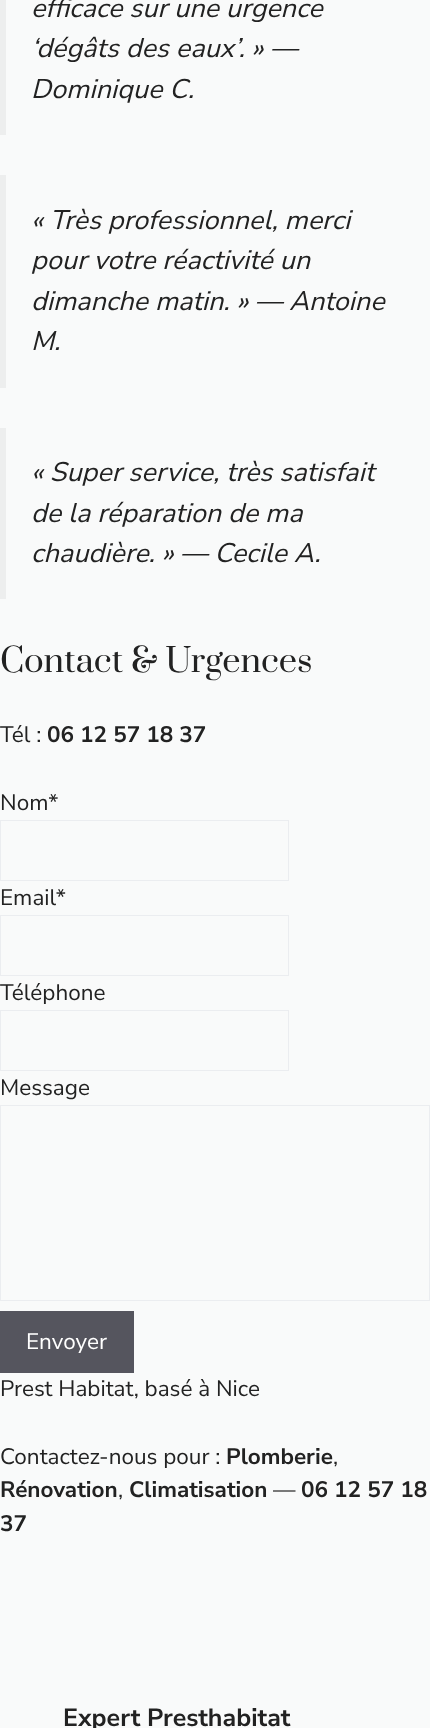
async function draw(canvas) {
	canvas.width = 430;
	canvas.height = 1728;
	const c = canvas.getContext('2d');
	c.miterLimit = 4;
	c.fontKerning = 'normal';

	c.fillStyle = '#f9fafa';
	c.fillRect(0, 0, 430, 1728);
	c.fillStyle = '#edeeee';
	c.fillRect(0, 0, 6, 135);
	c.font = 'italic 27px Nunito Sans';
	c.fillStyle = '#222';
	for (const [text, x, y] of [
		['efficace sur une urgence', 31, 17],
		['‘dégâts des eaux’. » —', 31, 57],
		['Dominique C.', 31, 98],
	]) {
		c.fillText(text, x, y);
	}
	c.fillStyle = '#edeeee';
	c.fillRect(0, 175, 6, 213);
	c.fillStyle = '#222';
	for (const [text, x, y] of [
		['« Très professionnel, merci', 31, 229],
		['pour votre réactivité un', 31, 269],
		['dimanche matin. » — Antoine', 31, 310],
		['M.', 31, 350],
	]) {
		c.fillText(text, x, y);
	}
	c.fillStyle = '#edeeee';
	c.fillRect(0, 428, 6, 171);
	c.fillStyle = '#222';
	for (const [text, x, y] of [
		['« Super service, très satisfait', 31, 481],
		['de la réparation de ma', 31, 522],
		['chaudière. » — Cecile A.', 31, 562],
	]) {
		c.fillText(text, x, y);
	}
	c.font = '32.5px Prata';
	c.fillText('Contact & Urgences', 0, 672);
	c.font = '22.5px Nunito Sans';
	c.fillText('Tél :', 0, 742);
	c.font = 'bold 22.5px Nunito Sans';
	c.fillText('06 12 57 18 37', 47, 742);
	c.font = '22.5px Nunito Sans';
	c.fillText('Nom*', 0, 810);
	c.strokeStyle = '#ebedf0';
	c.strokeRect(0.5, 820.5, 288, 60);
	c.fillText('Email*', 0, 905);
	c.strokeRect(0.5, 915.5, 288, 60);
	c.fillText('Téléphone', 0, 1000);
	c.strokeRect(0.5, 1010.5, 288, 60);
	c.fillText('Message', 0, 1095);
	c.strokeRect(0.5, 1105.5, 429, 195);
	c.fillStyle = '#55555e';
	c.fillRect(0, 1311, 134, 62);
	c.fillStyle = '#fff';
	c.fillText('Envoyer', 26, 1349);
	c.fillStyle = '#222';
	c.fillText('Prest Habitat, basé à Nice', 0, 1396);
	c.fillText('Contactez-nous pour :', 0, 1464);
	c.font = 'bold 22.5px Nunito Sans';
	c.fillText('Plomberie', 226, 1464);
	c.font = '22.5px Nunito Sans';
	c.fillText(',', 333, 1464);
	c.font = 'bold 22.5px Nunito Sans';
	c.fillText('Rénovation', 0, 1497);
	c.fillText('Climatisation', 129, 1497);
	c.font = '22.5px Nunito Sans';
	c.fillText('—', 273, 1497);
	c.font = 'bold 22.5px Nunito Sans';
	c.fillText('06 12 57 18', 301, 1497);
	c.font = '22.5px Nunito Sans';
	c.fillText(',', 118, 1497);
	c.font = 'bold 22.5px Nunito Sans';
	c.fillText('37', 0, 1531);
	c.font = 'bold 25px Nunito Sans';
	c.fillText('Expert Presthabitat', 63, 1726);
}

draw(document.querySelector('canvas'));
